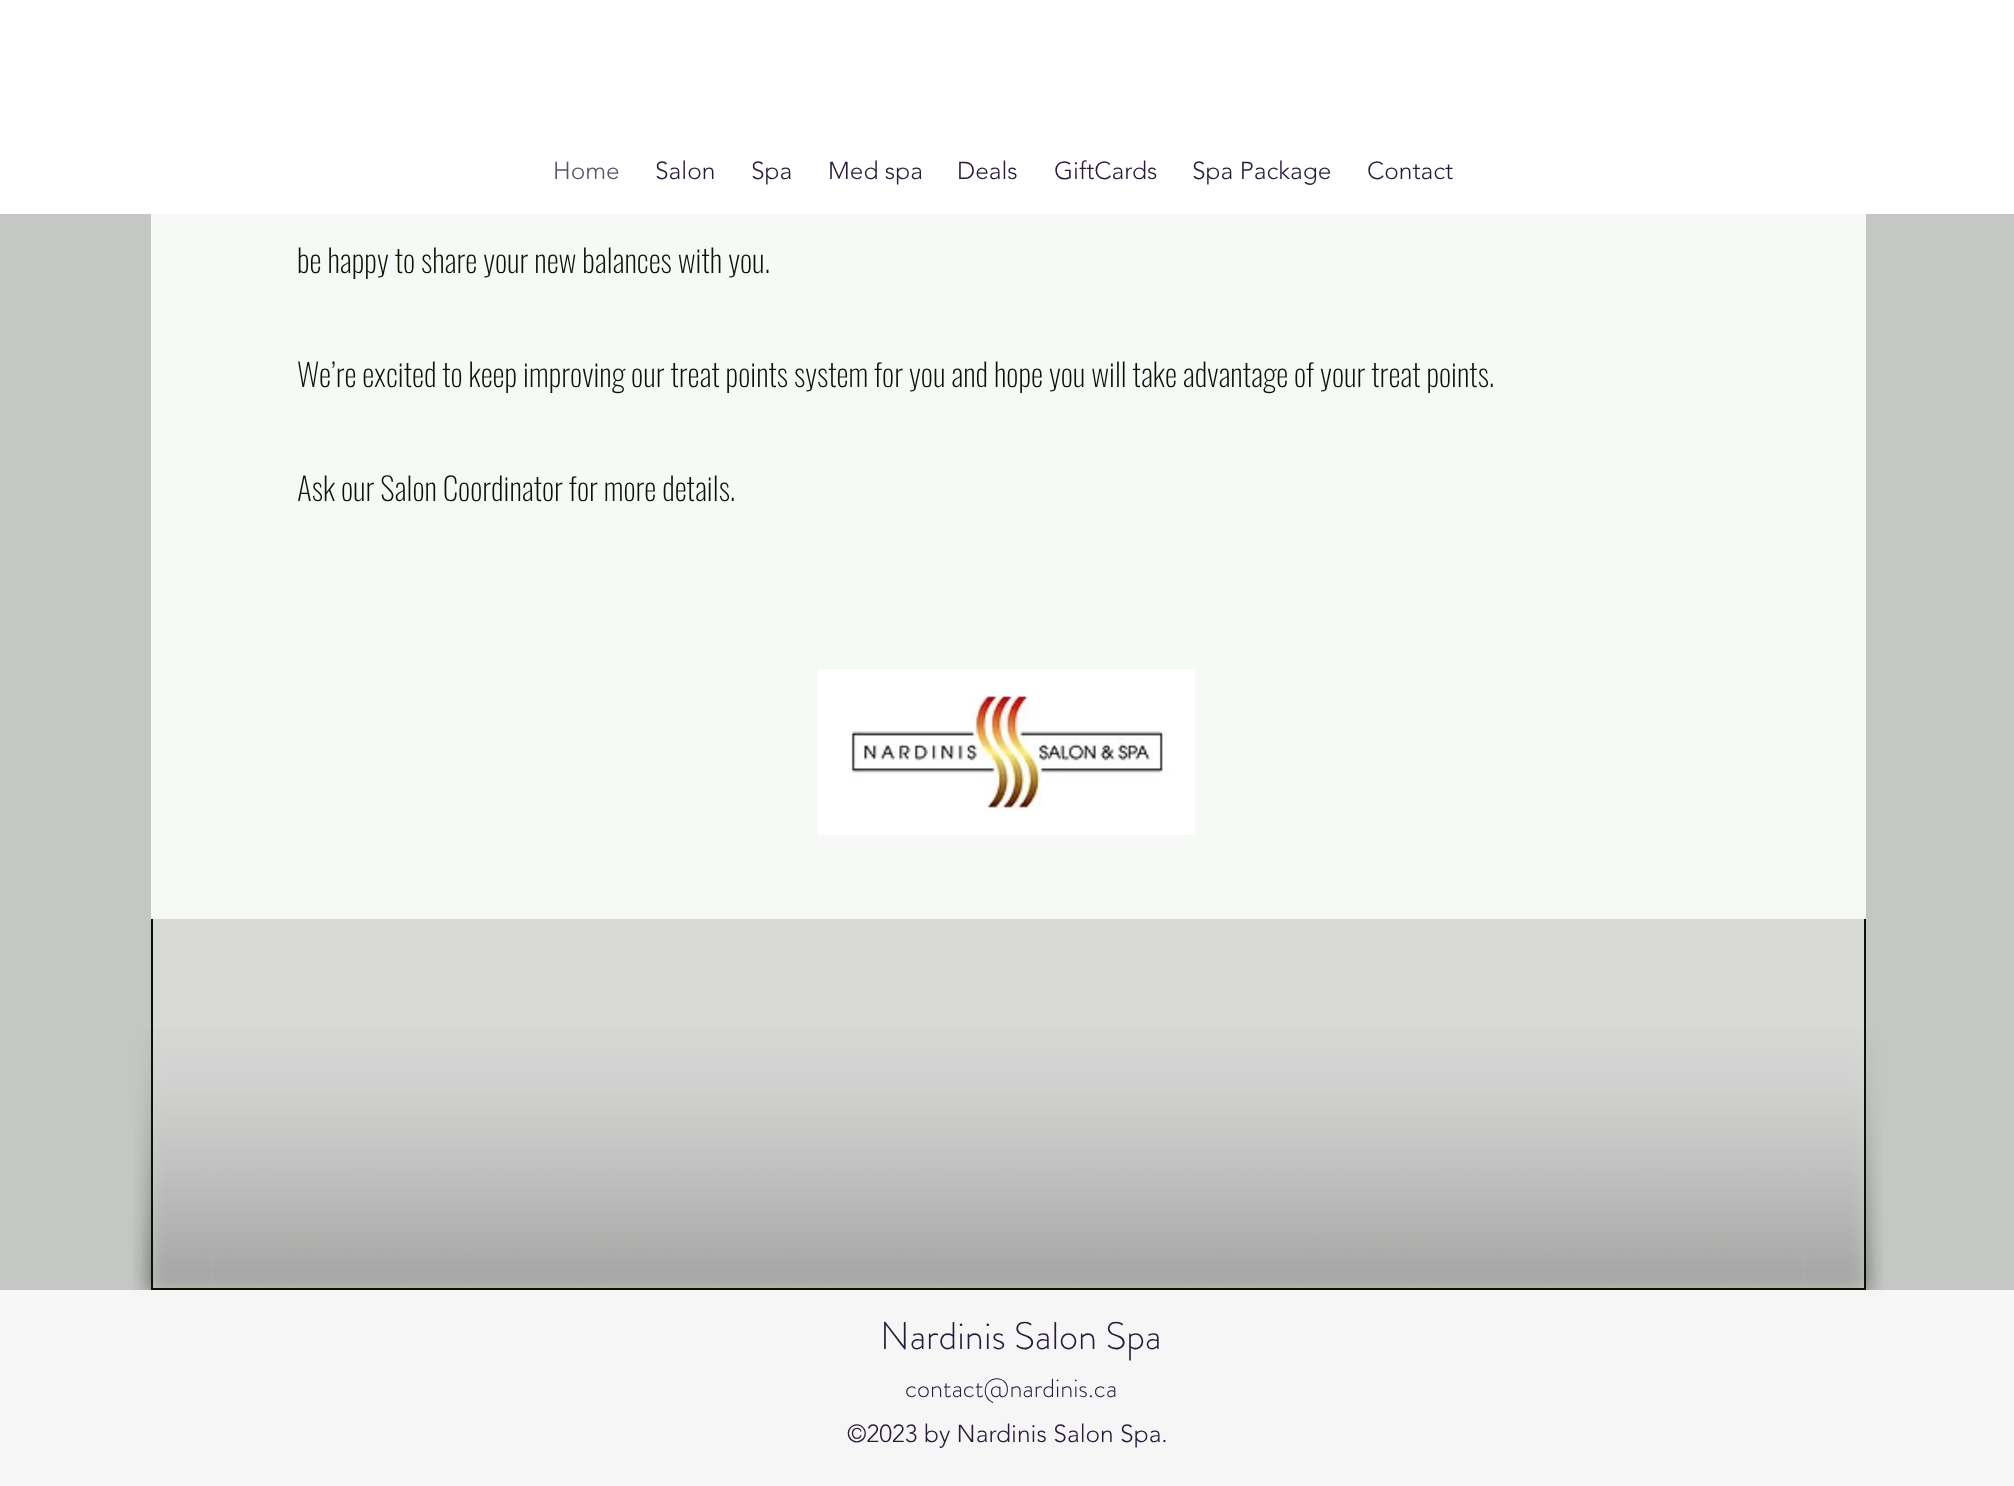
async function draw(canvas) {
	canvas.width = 2014;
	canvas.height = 1486;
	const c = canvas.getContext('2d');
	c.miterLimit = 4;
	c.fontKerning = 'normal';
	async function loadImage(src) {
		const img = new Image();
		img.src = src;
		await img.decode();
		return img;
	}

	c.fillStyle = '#c5c7c4';
	c.fillRect(0, 0, 2014, 1486);
	c.drawImage(await loadImage('img1.png'), 133, 1028, 79, 262);
	c.drawImage(await loadImage('img2.png'), 211, 1028, 1594, 260);
	c.drawImage(await loadImage('img3.png'), 1804, 1028, 79, 262);
	c.fillStyle = '#ffffff59';
	c.fillRect(153, 919, 1711, 369);
	c.strokeStyle = '#091405';
	c.lineWidth = 2;
	c.strokeRect(152, -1, 1713, 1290);
	c.fillStyle = '#fff';
	c.fillRect(0, 0, 2014, 214);
	c.font = '300 24.5px "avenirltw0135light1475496"';
	c.fillStyle = '#5c5168';
	c.fillText('Home', 553, 179);
	c.fillStyle = '#281a39';
	for (const [text, x, y] of [
		['Salon', 655, 179],
		['Spa', 751, 179],
		['Med spa', 828, 179],
		['Deals', 957, 179],
		['GiftCards', 1054, 179],
		['Spa Package', 1192, 179],
		['Contact', 1367, 179],
	]) {
		c.fillText(text, x, y);
	}
	c.fillStyle = '#f6f9f5';
	c.fillRect(151, 214, 1715, 705);
	c.font = '200 31.5px Oswald';
	c.fillStyle = '#091405';
	for (const [text, x, y] of [
		['be happy to share your new balances with you.', 297, 273],
		['We’re excited to keep improving our treat points system for you and hope you will take advantage of your treat points.', 297, 387],
		['Ask our Salon Coordinator for more details.', 297, 501],
	]) {
		c.fillText(text, x, y);
	}
	c.drawImage(await loadImage('img4.png'), 817, 669, 378, 166);
	c.fillStyle = '#f6f6f6';
	c.fillRect(0, 1290, 2014, 196);
	c.font = '300 38.5px "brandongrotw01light"';
	c.fillStyle = '#281a39';
	c.fillText('Nardinis Salon Spa', 880, 1349);
	c.font = '300 26.25px "brandongrotw01light"';
	c.fillText('contact@nardinis.ca', 905, 1397);
	c.font = '300 24.5px "avenirltw0135light1475496"';
	c.fillText('©2023 by Nardinis Salon Spa.', 847, 1442);
}

draw(document.querySelector('canvas'));
